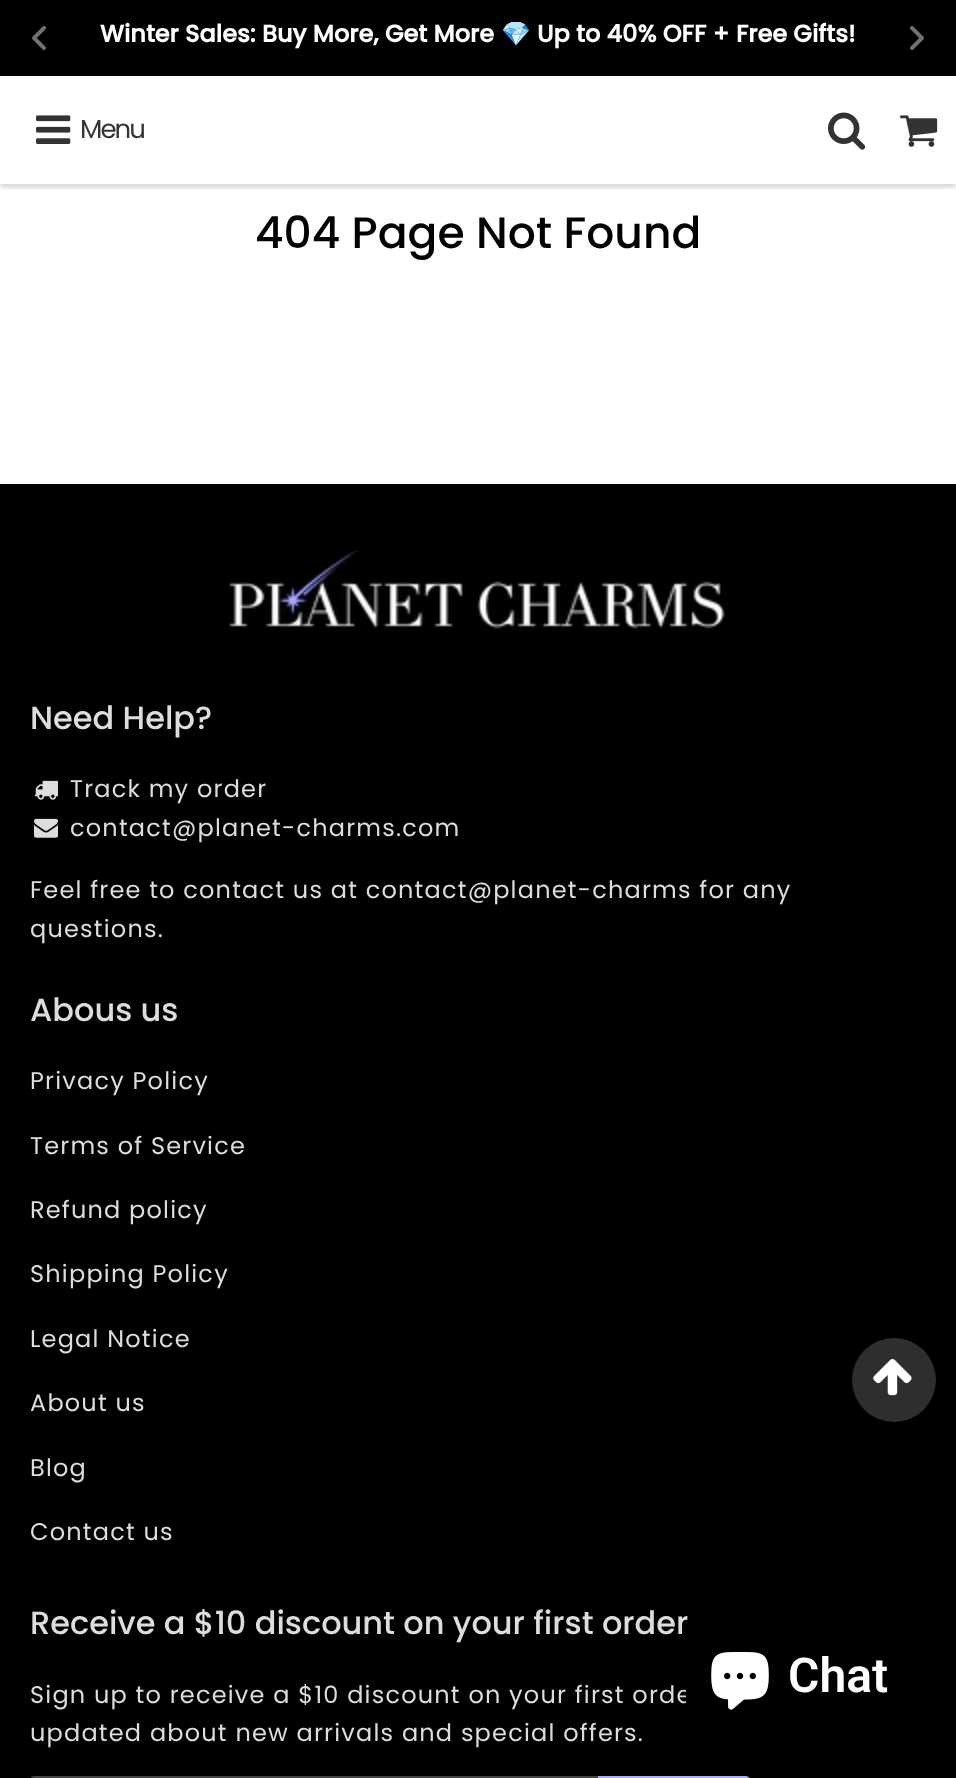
async function draw(canvas) {
	canvas.width = 956;
	canvas.height = 1778;
	const c = canvas.getContext('2d');
	c.miterLimit = 4;
	c.fontKerning = 'normal';
	async function loadImage(src) {
		const img = new Image();
		img.src = src;
		await img.decode();
		return img;
	}

	c.fillStyle = '#fff';
	c.fillRect(0, 0, 956, 1778);
	c.fillStyle = '#000';
	c.fillRect(0, 0, 956, 76);
	c.font = 'bold 24px Poppins';
	c.fillStyle = '#fff';
	c.fillText('Winter Sales: Buy More, Get More', 100, 42);
	c.font = 'bold 24px Noto Color Emoji';
	c.fillText('💎', 501, 42);
	c.font = 'bold 24px Poppins';
	c.fillText('Up to 40% OFF + Free Gifts!', 537, 42);
	c.drawImage(await loadImage('img1.png'), 32, 26, 14, 24);
	c.drawImage(await loadImage('img2.png'), 910, 26, 14, 24);
	c.save();
	c.beginPath();
	c.rect(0, 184, 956, 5);
	c.clip();
	c.fillStyle = '#0000000d';
	c.filter = 'blur(4px)';
	c.beginPath();
	c.rect(0, 80, 956, 108);
	c.fill();
	c.filter = 'none';
	c.restore();
	c.save();
	c.beginPath();
	c.rect(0, 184, 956, 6);
	c.clip();
	c.fillStyle = '#0000001a';
	c.filter = 'blur(2px)';
	c.beginPath();
	c.rect(0, 80, 956, 108);
	c.fill();
	c.filter = 'none';
	c.restore();
	c.drawImage(await loadImage('img3.png'), 36, 115, 35, 29);
	c.letterSpacing = '-2px';
	c.font = '26px Poppins';
	c.fillStyle = '#333';
	c.fillText('Menu', 80, 138);
	c.drawImage(await loadImage('img4.png'), 828, 112, 38, 38);
	c.drawImage(await loadImage('img5.png'), 900, 115, 38, 32);
	c.letterSpacing = '0px';
	c.font = '500 44px Poppins';
	c.fillStyle = '#000';
	c.fillText('404 Page Not Found', 255, 248);
	c.fillRect(0, 484, 956, 1294);
	c.drawImage(await loadImage('img6.png'), 229, 549, 496, 80);
	c.font = '500 32px Poppins';
	c.fillStyle = '#ddd';
	c.fillText('Need Help?', 30, 729);
	c.drawImage(await loadImage('img7.png'), 34, 780, 24, 20);
	c.letterSpacing = '1.2px';
	c.font = '24px Poppins';
	c.fillText('Track my order', 70, 797);
	c.drawImage(await loadImage('img8.png'), 34, 818, 24, 20);
	for (const [text, x, y] of [
		['contact@planet-charms.com', 70, 836],
		['Feel free to contact us at contact@planet-charms for any', 30, 898],
		['questions.', 30, 937],
	]) {
		c.fillText(text, x, y);
	}
	c.letterSpacing = '0px';
	c.font = '500 32px Poppins';
	c.fillText('Abous us', 30, 1021);
	c.letterSpacing = '1.2px';
	c.font = '24px Poppins';
	for (const [text, x, y] of [
		['Privacy Policy', 30, 1089],
		['Terms of Service', 30, 1154],
		['Refund policy', 30, 1218],
		['Shipping Policy', 30, 1282],
		['Legal Notice', 30, 1347],
		['About us', 30, 1411],
		['Blog', 30, 1476],
		['Contact us', 30, 1540],
	]) {
		c.fillText(text, x, y);
	}
	c.letterSpacing = '0px';
	c.font = '500 32px Poppins';
	c.fillText('Receive a $10 discount on your first order', 30, 1634);
	c.letterSpacing = '1.2px';
	c.font = '24px Poppins';
	c.fillText('Sign up to receive a $10 discount on your first orde', 30, 1703);
	c.fillText('updated about new arrivals and special offers.', 30, 1741);
	c.fillStyle = '#444';
	c.beginPath();
	c.moveTo(34, 1776);
	c.lineTo(598, 1776);
	c.lineTo(598, 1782);
	c.lineTo(34, 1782);
	c.bezierCurveTo(32, 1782, 30, 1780, 30, 1778);
	c.lineTo(30, 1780);
	c.bezierCurveTo(30, 1778, 32, 1776, 34, 1776);
	c.closePath();
	c.fill();
	c.fillStyle = '#aaacff';
	c.beginPath();
	c.moveTo(598, 1776);
	c.lineTo(746, 1776);
	c.bezierCurveTo(748, 1776, 750, 1778, 750, 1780);
	c.lineTo(750, 1778);
	c.bezierCurveTo(750, 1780, 748, 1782, 746, 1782);
	c.lineTo(598, 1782);
	c.closePath();
	c.fill();
	c.fillStyle = '#2e2e2e';
	c.beginPath();
	c.arc(894, 1380, 42, 0, 2 * Math.PI);
	c.fill();
	c.drawImage(await loadImage('img9.png'), 873, 1359, 39, 37);
	c.fillStyle = '#00000026';
	c.filter = 'blur(5px)';
	c.beginPath();
	c.roundRect(686, 1616, 226, 120, 32);
	c.fill();
	c.filter = 'none';
	c.fillStyle = '#000';
	c.beginPath();
	c.roundRect(686, 1616, 226, 120, 32);
	c.fill();
	c.drawImage(await loadImage('img10.png'), 711, 1652, 58, 58);
	c.letterSpacing = '0px';
	c.font = '600 48px Roboto';
	c.fillStyle = '#fff';
	c.fillText('Chat', 788, 1692);
}

draw(document.querySelector('canvas'));
